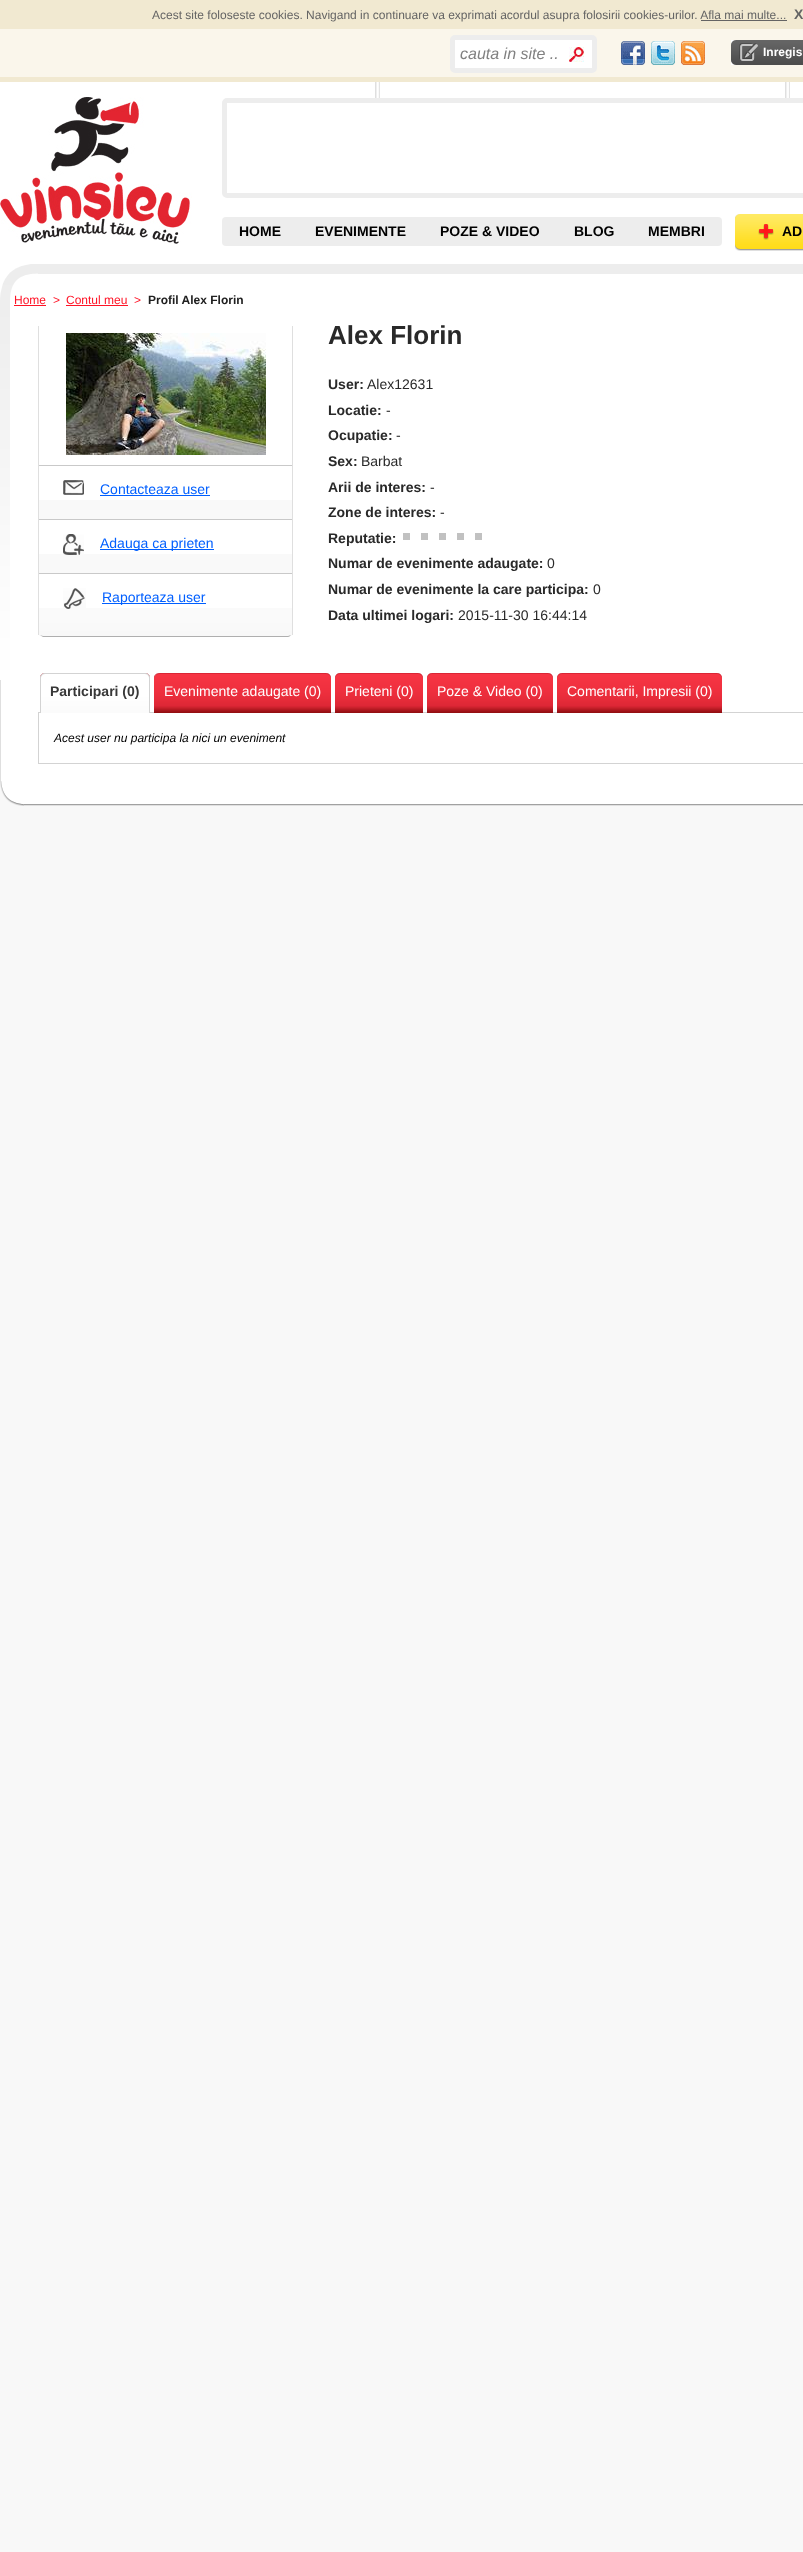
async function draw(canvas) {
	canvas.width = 803;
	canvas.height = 2552;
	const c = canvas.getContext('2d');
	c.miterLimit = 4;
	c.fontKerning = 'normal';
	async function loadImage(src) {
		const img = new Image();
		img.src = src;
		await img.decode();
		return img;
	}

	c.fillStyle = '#f8f8f8';
	c.fillRect(0, 0, 803, 2552);
	c.drawImage(await loadImage('img1.png'), 0, 82, 803, 182);
	c.fillStyle = '#f1e9d1';
	c.fillRect(0, 0, 803, 29);
	c.font = '12px Liberation Sans';
	c.fillStyle = '#646464';
	c.fillText('Acest site foloseste cookies. Navigand in continuare va exprimati acordul asupra folosirii cookies-urilor. Afla mai multe...', 152, 19);
	c.font = 'bold 14px Liberation Sans';
	c.fillText('X', 794, 19);
	for (const [x, y, w, h, color] of [
		[701, 20, 86, 1, '#646464'],
		[0, 29, 803, 48, '#faf6eb'],
		[0, 77, 803, 5, '#f1e9d1'],
	]) {
		c.fillStyle = color;
		c.fillRect(x, y, w, h);
	}
	c.fillStyle = '#fff';
	c.beginPath();
	c.roundRect(452.5, 37.5, 142, 33, 2.5);
	c.fill();
	c.strokeStyle = '#ededed';
	c.lineWidth = 5;
	c.stroke();
	c.font = 'italic 16px Liberation Sans';
	c.fillStyle = '#818181';
	c.fillText('cauta in site ..', 460, 59);
	c.drawImage(await loadImage('img2.png'), 569, 47, 15, 15);
	c.drawImage(await loadImage('img3.png'), 621, 41, 24, 24);
	c.drawImage(await loadImage('img4.png'), 651, 41, 24, 24);
	c.drawImage(await loadImage('img5.png'), 681, 41, 24, 24);
	c.drawImage(await loadImage('img6.png'), 731, 40, 72, 25);
	c.font = 'bold 12px Liberation Sans';
	c.fillStyle = '#fff';
	c.fillText('Inregis', 763, 56);
	c.drawImage(await loadImage('img7.png'), 0, 97, 192, 147);
	c.drawImage(await loadImage('img8.png'), 375, 82, 415, 16);
	c.beginPath();
	c.roundRect(224.5, 100.5, 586, 95, 2.5);
	c.stroke();
	c.fillStyle = '#ededed';
	c.beginPath();
	c.roundRect(222, 217, 500, 29, 4);
	c.fill();
	c.font = 'bold 14px Liberation Sans';
	c.fillStyle = '#000';
	for (const [text, x, y] of [
		['HOME', 239, 236],
		['EVENIMENTE', 315, 236],
		['POZE & VIDEO', 440, 236],
		['BLOG', 574, 236],
		['MEMBRI', 648, 236],
	]) {
		c.fillText(text, x, y);
	}
	c.drawImage(await loadImage('img9.png'), 735, 214, 68, 37);
	c.fillText('AD', 782, 236);
	c.fillStyle = '#fff';
	c.fillRect(1, 274, 802, 530);
	c.fillStyle = '#ededed';
	c.beginPath();
	c.moveTo(0, 264);
	c.lineTo(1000, 264);
	c.lineTo(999, 274);
	c.lineTo(1, 274);
	c.closePath();
	c.fill();
	c.fillStyle = '#dfdfdf';
	c.beginPath();
	c.moveTo(0, 805);
	c.lineTo(0, 264);
	c.lineTo(1, 274);
	c.lineTo(1, 805);
	c.closePath();
	c.fill();
	c.drawImage(await loadImage('img10.png'), 0, 264, 38, 416);
	c.font = '12px Liberation Sans';
	c.fillStyle = '#ff1326';
	c.fillText('Home', 14, 304);
	c.fillRect(14, 305, 32, 1);
	c.fillText('>', 53, 304);
	c.fillText('Contul meu', 66, 304);
	c.fillRect(66, 305, 62, 1);
	c.fillText('>', 134, 304);
	c.font = 'bold 12px Liberation Sans';
	c.fillStyle = '#202020';
	c.fillText('Profil Alex Florin', 148, 304);
	c.drawImage(await loadImage('img11.png'), 39, 616, 253, 21);
	c.fillStyle = '#afafaf';
	c.beginPath();
	c.moveTo(40, 635);
	c.lineTo(43, 637);
	c.lineTo(288, 637);
	c.bezierCurveTo(289, 637, 290, 636, 291, 635);
	c.lineTo(288, 636);
	c.lineTo(43, 636);
	c.closePath();
	c.fill();
	c.fillStyle = '#dfdfdf';
	c.fillRect(292, 326, 1, 309);
	c.fillRect(38, 326, 1, 309);
	c.drawImage(await loadImage('img12.png'), 66, 333, 200, 122);
	c.fillStyle = '#f9f9f9';
	c.fillRect(39, 500, 253, 19);
	c.fillStyle = '#c9c9c9';
	c.fillRect(39, 465, 253, 1);
	c.drawImage(await loadImage('img13.png'), 63, 480, 21, 15);
	c.font = '14px Liberation Sans';
	c.fillStyle = '#005fff';
	c.fillText('Contacteaza user', 100, 494);
	for (const [x, y, w, h, color] of [
		[100, 495, 110, 1, '#005fff'],
		[39, 554, 253, 19, '#f9f9f9'],
		[39, 519, 253, 1, '#c9c9c9'],
	]) {
		c.fillStyle = color;
		c.fillRect(x, y, w, h);
	}
	c.drawImage(await loadImage('img14.png'), 63, 534, 21, 21);
	c.fillStyle = '#005fff';
	c.fillRect(100, 549, 114, 1);
	c.fillText('Adauga ca prieten', 100, 548);
	c.fillStyle = '#fafafa';
	c.fillRect(39, 608, 253, 8);
	c.fillStyle = '#c9c9c9';
	c.fillRect(39, 573, 253, 1);
	c.drawImage(await loadImage('img15.png'), 63, 588, 23, 21);
	c.fillStyle = '#005fff';
	c.fillRect(102, 603, 104, 1);
	c.fillText('Raporteaza user', 102, 602);
	c.font = 'bold 26px Liberation Sans';
	c.fillStyle = '#292929';
	c.fillText('Alex Florin', 328, 344);
	c.font = 'bold 14px Liberation Sans';
	c.fillText('User:', 328, 389);
	c.font = '14px Liberation Sans';
	c.fillText('Alex12631', 367, 389);
	c.font = 'bold 14px Liberation Sans';
	c.fillText('Locatie:', 328, 415);
	c.font = '14px Liberation Sans';
	c.fillText('-', 386, 415);
	c.font = 'bold 14px Liberation Sans';
	c.fillText('Ocupatie:', 328, 440);
	c.font = '14px Liberation Sans';
	c.fillText('-', 396, 440);
	c.font = 'bold 14px Liberation Sans';
	c.fillText('Sex:', 328, 466);
	c.font = '14px Liberation Sans';
	c.fillText('Barbat', 361, 466);
	c.font = 'bold 14px Liberation Sans';
	c.fillText('Arii de interes:', 328, 492);
	c.font = '14px Liberation Sans';
	c.fillText('-', 430, 492);
	c.font = 'bold 14px Liberation Sans';
	c.fillText('Zone de interes:', 328, 517);
	c.font = '14px Liberation Sans';
	c.fillText('-', 440, 517);
	c.font = 'bold 14px Liberation Sans';
	c.fillText('Reputatie:', 328, 543);
	for (const [x, y, w, h, color] of [
		[403, 533, 7, 7, '#c1c1c1'],
		[421, 533, 7, 7, '#c1c1c1'],
		[439, 533, 7, 7, '#c1c1c1'],
		[457, 533, 7, 7, '#c1c1c1'],
		[475, 533, 7, 7, '#c1c1c1'],
	]) {
		c.fillStyle = color;
		c.fillRect(x, y, w, h);
	}
	c.fillStyle = '#292929';
	c.fillText('Numar de evenimente adaugate:', 328, 568);
	c.font = '14px Liberation Sans';
	c.fillText('0', 547, 568);
	c.font = 'bold 14px Liberation Sans';
	c.fillText('Numar de evenimente la care participa:', 328, 594);
	c.font = '14px Liberation Sans';
	c.fillText('0', 593, 594);
	c.font = 'bold 14px Liberation Sans';
	c.fillText('Data ultimei logari:', 328, 620);
	c.font = '14px Liberation Sans';
	c.fillText('2015-11-30 16:44:14', 458, 620);
	c.strokeStyle = '#d3d3d3';
	c.lineWidth = 1;
	c.strokeRect(38.5, 712.5, 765, 51);
	c.drawImage(await loadImage('img16.png'), 45, 673, 100, 40);
	c.drawImage(await loadImage('img17.png'), 40, 673, 5, 40);
	c.drawImage(await loadImage('img18.png'), 145, 673, 5, 40);
	c.font = 'bold 14px Liberation Sans';
	c.fillStyle = '#383838';
	c.fillText('Participari (0)', 50, 696);
	c.drawImage(await loadImage('img19.png'), 154, 673, 177, 40);
	c.drawImage(await loadImage('img20.png'), 154, 673, 6, 5);
	c.drawImage(await loadImage('img21.png'), 326, 673, 5, 5);
	c.font = '14px Liberation Sans';
	c.fillStyle = '#fff';
	c.fillText('Evenimente adaugate (0)', 164, 696);
	c.drawImage(await loadImage('img22.png'), 335, 673, 88, 40);
	c.drawImage(await loadImage('img23.png'), 335, 673, 5, 5);
	c.drawImage(await loadImage('img21.png'), 418, 673, 5, 5);
	c.fillText('Prieteni (0)', 345, 696);
	c.drawImage(await loadImage('img24.png'), 427, 673, 126, 40);
	c.drawImage(await loadImage('img23.png'), 427, 673, 5, 5);
	c.drawImage(await loadImage('img21.png'), 548, 673, 5, 5);
	c.fillText('Poze & Video (0)', 437, 696);
	c.drawImage(await loadImage('img25.png'), 557, 673, 165, 40);
	c.drawImage(await loadImage('img23.png'), 557, 673, 5, 5);
	c.drawImage(await loadImage('img21.png'), 717, 673, 5, 5);
	c.fillText('Comentarii, Impresii (0)', 567, 696);
	c.font = 'italic 12px Liberation Sans';
	c.fillStyle = '#000';
	c.fillText('Acest user nu participa la nici un eveniment', 54, 742);
	c.drawImage(await loadImage('img26.png'), 0, 781, 24, 25);
	c.drawImage(await loadImage('img27.png'), 24, 804, 779, 2);
}

draw(document.querySelector('canvas'));
